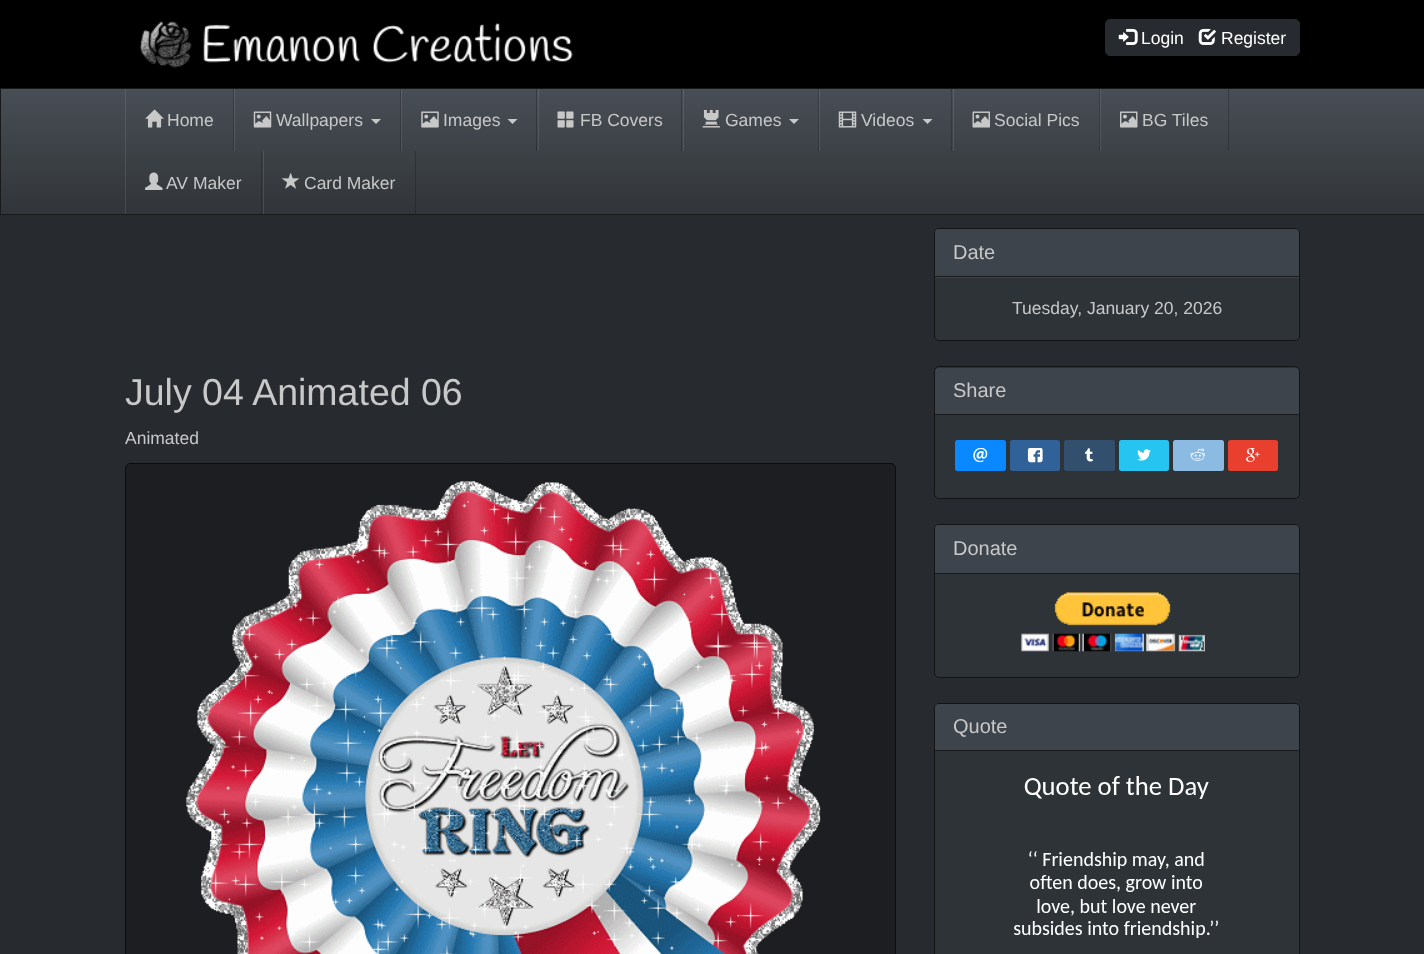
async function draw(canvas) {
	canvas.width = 1424;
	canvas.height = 954;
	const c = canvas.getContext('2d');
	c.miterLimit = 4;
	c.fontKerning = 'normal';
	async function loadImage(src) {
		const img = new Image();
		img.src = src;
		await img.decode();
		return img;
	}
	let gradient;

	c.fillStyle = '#272b30';
	c.fillRect(0, 0, 1424, 954);
	c.fillStyle = '#000';
	c.fillRect(0, 0, 1424, 88);
	c.drawImage(await loadImage('img1.png'), 140, 21, 433, 47);
	c.fillStyle = '#272b30';
	c.beginPath();
	c.roundRect(1105.5, 19.5, 194, 36, 4.5);
	c.fill();
	c.strokeStyle = '#272b30';
	c.stroke();
	c.drawImage(await loadImage('img2.png'), 1118, 28, 20, 17);
	c.font = '17.5px Liberation Sans';
	c.fillStyle = '#fff';
	c.fillText('Login', 1141, 44);
	c.drawImage(await loadImage('img3.png'), 1198, 28, 18, 17);
	c.fillText('Register', 1221, 44);
	gradient = c.createLinearGradient(713, 89, 713, 214);
	gradient.addColorStop(0, '#484e55');
	gradient.addColorStop(0.6, '#3a3f44');
	gradient.addColorStop(1, '#313539');
	c.fillStyle = gradient;
	c.fillRect(1, 89, 1423, 125);
	gradient = c.createLinearGradient(713, 89, 713, 214);
	gradient.addColorStop(0, '#5a6066');
	gradient.addColorStop(0.6, '#4e5257');
	gradient.addColorStop(1, '#46494d');
	c.fillStyle = gradient;
	c.fillRect(263, 151, 1, 63);
	gradient = c.createLinearGradient(713, 89, 713, 214);
	gradient.addColorStop(0, '#3a3e44');
	gradient.addColorStop(0.6, '#2e3236');
	gradient.addColorStop(1, '#272a2e');
	c.fillStyle = gradient;
	c.fillRect(415, 151, 1, 63);
	gradient = c.createLinearGradient(713, 89, 713, 214);
	gradient.addColorStop(0, '#5a6066');
	gradient.addColorStop(0.6, '#4e5257');
	gradient.addColorStop(1, '#46494d');
	c.fillStyle = gradient;
	c.fillRect(125, 151, 1, 63);
	gradient = c.createLinearGradient(713, 89, 713, 214);
	gradient.addColorStop(0, '#3a3e44');
	gradient.addColorStop(0.6, '#2e3236');
	gradient.addColorStop(1, '#272a2e');
	c.fillStyle = gradient;
	c.fillRect(261, 151, 1, 63);
	gradient = c.createLinearGradient(713, 89, 713, 214);
	gradient.addColorStop(0, '#5a6066');
	gradient.addColorStop(0.6, '#4e5257');
	gradient.addColorStop(1, '#46494d');
	c.fillStyle = gradient;
	c.fillRect(1100, 89, 1, 62);
	gradient = c.createLinearGradient(713, 89, 713, 214);
	gradient.addColorStop(0, '#3a3e44');
	gradient.addColorStop(0.6, '#2e3236');
	gradient.addColorStop(1, '#272a2e');
	c.fillStyle = gradient;
	c.fillRect(1228, 89, 1, 62);
	gradient = c.createLinearGradient(713, 89, 713, 214);
	gradient.addColorStop(0, '#5a6066');
	gradient.addColorStop(0.6, '#4e5257');
	gradient.addColorStop(1, '#46494d');
	c.fillStyle = gradient;
	c.fillRect(953, 89, 1, 62);
	gradient = c.createLinearGradient(713, 89, 713, 214);
	gradient.addColorStop(0, '#3a3e44');
	gradient.addColorStop(0.6, '#2e3236');
	gradient.addColorStop(1, '#272a2e');
	c.fillStyle = gradient;
	c.fillRect(1099, 89, 1, 62);
	gradient = c.createLinearGradient(713, 89, 713, 214);
	gradient.addColorStop(0, '#5a6066');
	gradient.addColorStop(0.6, '#4e5257');
	gradient.addColorStop(1, '#46494d');
	c.fillStyle = gradient;
	c.fillRect(819, 89, 1, 62);
	gradient = c.createLinearGradient(713, 89, 713, 214);
	gradient.addColorStop(0, '#3a3e44');
	gradient.addColorStop(0.6, '#2e3236');
	gradient.addColorStop(1, '#272a2e');
	c.fillStyle = gradient;
	c.fillRect(951, 89, 1, 62);
	gradient = c.createLinearGradient(713, 89, 713, 214);
	gradient.addColorStop(0, '#5a6066');
	gradient.addColorStop(0.6, '#4e5257');
	gradient.addColorStop(1, '#46494d');
	c.fillStyle = gradient;
	c.fillRect(683, 89, 1, 62);
	gradient = c.createLinearGradient(713, 89, 713, 214);
	gradient.addColorStop(0, '#3a3e44');
	gradient.addColorStop(0.6, '#2e3236');
	gradient.addColorStop(1, '#272a2e');
	c.fillStyle = gradient;
	c.fillRect(818, 89, 1, 62);
	gradient = c.createLinearGradient(713, 89, 713, 214);
	gradient.addColorStop(0, '#5a6066');
	gradient.addColorStop(0.6, '#4e5257');
	gradient.addColorStop(1, '#46494d');
	c.fillStyle = gradient;
	c.fillRect(538, 89, 1, 62);
	gradient = c.createLinearGradient(713, 89, 713, 214);
	gradient.addColorStop(0, '#3a3e44');
	gradient.addColorStop(0.6, '#2e3236');
	gradient.addColorStop(1, '#272a2e');
	c.fillStyle = gradient;
	c.fillRect(681, 89, 1, 62);
	gradient = c.createLinearGradient(713, 89, 713, 214);
	gradient.addColorStop(0, '#5a6066');
	gradient.addColorStop(0.6, '#4e5257');
	gradient.addColorStop(1, '#46494d');
	c.fillStyle = gradient;
	c.fillRect(401, 89, 1, 62);
	gradient = c.createLinearGradient(713, 89, 713, 214);
	gradient.addColorStop(0, '#3a3e44');
	gradient.addColorStop(0.6, '#2e3236');
	gradient.addColorStop(1, '#272a2e');
	c.fillStyle = gradient;
	c.fillRect(536, 89, 1, 62);
	gradient = c.createLinearGradient(713, 89, 713, 214);
	gradient.addColorStop(0, '#5a6066');
	gradient.addColorStop(0.6, '#4e5257');
	gradient.addColorStop(1, '#46494d');
	c.fillStyle = gradient;
	c.fillRect(234, 89, 1, 62);
	gradient = c.createLinearGradient(713, 89, 713, 214);
	gradient.addColorStop(0, '#3a3e44');
	gradient.addColorStop(0.6, '#2e3236');
	gradient.addColorStop(1, '#272a2e');
	c.fillStyle = gradient;
	c.fillRect(400, 89, 1, 62);
	gradient = c.createLinearGradient(713, 89, 713, 214);
	gradient.addColorStop(0, '#5a6066');
	gradient.addColorStop(0.6, '#4e5257');
	gradient.addColorStop(1, '#46494d');
	c.fillStyle = gradient;
	c.fillRect(125, 89, 1, 62);
	gradient = c.createLinearGradient(713, 89, 713, 214);
	gradient.addColorStop(0, '#3a3e44');
	gradient.addColorStop(0.6, '#2e3236');
	gradient.addColorStop(1, '#272a2e');
	c.fillStyle = gradient;
	c.fillRect(233, 89, 1, 62);
	c.strokeStyle = '#17191b';
	c.strokeRect(0.5, 88.5, 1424, 126);
	c.drawImage(await loadImage('img4.png'), 145, 109, 19, 19);
	c.fillStyle = '#c8c8c8';
	c.fillText('Home', 167, 126);
	c.drawImage(await loadImage('img5.png'), 253, 111, 19, 17);
	c.fillText('Wallpapers', 276, 126);
	c.beginPath();
	c.moveTo(371, 119);
	c.lineTo(381, 119);
	c.lineTo(376, 124);
	c.closePath();
	c.fill();
	c.drawImage(await loadImage('img6.png'), 421, 111, 18, 17);
	c.fillText('Images', 443, 126);
	c.beginPath();
	c.moveTo(507.5, 119);
	c.lineTo(517.5, 119);
	c.lineTo(512.5, 124);
	c.closePath();
	c.fill();
	c.drawImage(await loadImage('img7.png'), 557, 111, 17, 17);
	c.fillText('FB Covers', 580, 126);
	c.drawImage(await loadImage('img8.png'), 702, 110, 18, 18);
	c.fillText('Games', 725, 126);
	c.beginPath();
	c.moveTo(789, 119);
	c.lineTo(799, 119);
	c.lineTo(794, 124);
	c.closePath();
	c.fill();
	c.drawImage(await loadImage('img9.png'), 838, 111, 19, 17);
	c.fillText('Videos', 861, 126);
	c.beginPath();
	c.moveTo(922.5, 119);
	c.lineTo(932.5, 119);
	c.lineTo(927.5, 124);
	c.closePath();
	c.fill();
	c.drawImage(await loadImage('img10.png'), 972, 111, 18, 17);
	c.fillText('Social Pics', 994, 126);
	c.drawImage(await loadImage('img11.png'), 1120, 111, 18, 17);
	c.fillText('BG Tiles', 1142, 126);
	c.drawImage(await loadImage('img12.png'), 145, 172, 18, 18);
	c.fillText('AV Maker', 166, 189);
	c.drawImage(await loadImage('img13.png'), 282, 173, 18, 16);
	c.fillText('Card Maker', 304, 189);
	c.font = '37.5px Liberation Sans';
	c.fillText('July 04 Animated 06', 125, 405);
	c.font = '17.5px Liberation Sans';
	c.fillText('Animated', 125, 444);
	c.fillStyle = '#1c1e22';
	c.beginPath();
	c.roundRect(125.5, 463.5, 770, 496, 4.5);
	c.fill();
	c.strokeStyle = '#0c0d0e';
	c.stroke();
	c.drawImage(await loadImage('img14.png'), 186, 481, 635, 473);
	c.fillStyle = '#2e3338';
	c.beginPath();
	c.roundRect(934, 228, 366, 113, 5);
	c.fill();
	c.beginPath();
	c.roundRect(934.5, 228.5, 365, 112, 4.5);
	c.strokeStyle = '#00000099';
	c.stroke();
	c.fillStyle = '#3e444c';
	c.beginPath();
	c.roundRect(935, 229, 364, 49, [4, 4, 0, 0]);
	c.fill();
	c.fillStyle = '#191b1e';
	c.fillRect(935, 276, 364, 1);
	c.font = '20px Liberation Sans';
	c.fillStyle = '#c8c8c8';
	c.fillText('Date', 953, 259);
	c.font = '17.5px Liberation Sans';
	c.fillText('Tuesday, January 20, 2026', 1012, 314);
	c.fillStyle = '#2e3338';
	c.beginPath();
	c.roundRect(934, 366, 366, 133, 5);
	c.fill();
	c.beginPath();
	c.roundRect(934.5, 366.5, 365, 132, 4.5);
	c.stroke();
	c.fillStyle = '#3e444c';
	c.beginPath();
	c.roundRect(935, 368, 364, 47, [4, 4, 0, 0]);
	c.fill();
	c.fillStyle = '#191b1e';
	c.fillRect(935, 414, 364, 1);
	c.font = '20px Liberation Sans';
	c.fillStyle = '#c8c8c8';
	c.fillText('Share', 953, 397);
	c.fillStyle = '#0a88ff';
	c.beginPath();
	c.roundRect(955, 440, 51, 31, 2.5);
	c.fill();
	c.drawImage(await loadImage('img15.png'), 973, 448, 15, 15);
	c.fillStyle = '#306199';
	c.beginPath();
	c.roundRect(1010, 440, 50, 31, 2.5);
	c.fill();
	c.drawImage(await loadImage('img16.png'), 1027, 448, 16, 15);
	c.fillStyle = '#32506d';
	c.beginPath();
	c.roundRect(1064, 440, 51, 31, 2.5);
	c.fill();
	c.drawImage(await loadImage('img17.png'), 1085, 448, 8, 14);
	c.fillStyle = '#26c4f1';
	c.beginPath();
	c.roundRect(1119, 440, 50, 31, 2.5);
	c.fill();
	c.drawImage(await loadImage('img18.png'), 1137, 449, 14, 12);
	c.fillStyle = '#8bbbe3';
	c.beginPath();
	c.roundRect(1173, 440, 51, 31, 2.5);
	c.fill();
	c.drawImage(await loadImage('img19.png'), 1190, 448, 15, 13);
	c.fillStyle = '#e93f2e';
	c.beginPath();
	c.roundRect(1228, 440, 50, 31, 2.5);
	c.fill();
	c.drawImage(await loadImage('img20.png'), 1246, 448, 14, 14);
	c.fillStyle = '#2e3338';
	c.beginPath();
	c.roundRect(934, 524, 366, 154, 5);
	c.fill();
	c.beginPath();
	c.roundRect(934.5, 524.5, 365, 153, 4.5);
	c.stroke();
	c.fillStyle = '#3e444c';
	c.beginPath();
	c.roundRect(935, 525, 364, 49, [4, 4, 0, 0]);
	c.fill();
	c.fillStyle = '#191b1e';
	c.fillRect(935, 573, 364, 1);
	c.fillStyle = '#c8c8c8';
	c.fillText('Donate', 953, 555);
	c.drawImage(await loadImage('img21.png'), 1021, 592, 184, 60);
	c.fillStyle = '#2e3338';
	c.beginPath();
	c.roundRect(934, 703, 366, 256, 5);
	c.fill();
	c.beginPath();
	c.roundRect(934.5, 703.5, 365, 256, 4.5);
	c.stroke();
	c.fillStyle = '#3e444c';
	c.beginPath();
	c.roundRect(935, 704, 364, 47, [4, 4, 0, 0]);
	c.fill();
	c.fillStyle = '#191b1e';
	c.fillRect(935, 750, 364, 1);
	c.fillStyle = '#c8c8c8';
	c.fillText('Quote', 953, 733);
	c.drawImage(await loadImage('img22.png'), 1014, 776, 204, 162);
}

draw(document.querySelector('canvas'));
